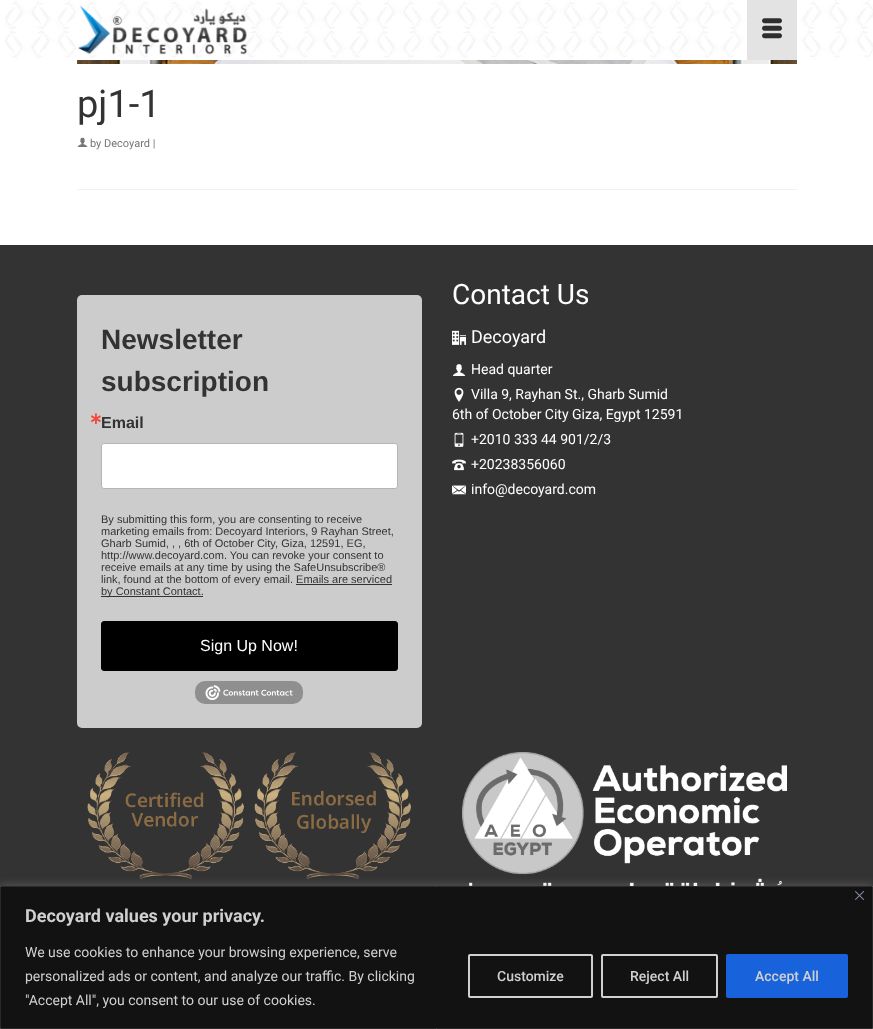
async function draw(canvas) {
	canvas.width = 873;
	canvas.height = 1029;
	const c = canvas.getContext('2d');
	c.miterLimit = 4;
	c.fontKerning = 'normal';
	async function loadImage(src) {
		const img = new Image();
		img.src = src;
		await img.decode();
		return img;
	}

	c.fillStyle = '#fff';
	c.fillRect(0, 0, 873, 1029);
	c.drawImage(await loadImage('img1.png'), 5, 0, 868, 60);
	c.drawImage(await loadImage('img2.png'), 78, 5, 169, 50);
	c.fillStyle = '#e3e3e3';
	c.fillRect(747, 0, 50, 60);
	c.drawImage(await loadImage('img3.png'), 762, 18, 20, 21);
	c.drawImage(await loadImage('img4.png'), 77, 60, 720, 4);
	c.font = '38px Roboto';
	c.fillStyle = '#333';
	c.fillText('pj1-1', 77, 117);
	c.drawImage(await loadImage('img5.png'), 77, 137, 11, 10);
	c.font = '11px Roboto';
	c.fillStyle = '#777';
	c.fillText('by Decoyard |', 90, 147);
	c.fillStyle = '#f2f2f2';
	c.fillRect(77, 189, 720, 1);
	c.fillStyle = '#333';
	c.fillRect(0, 245, 873, 641);
	c.fillStyle = '#ccc';
	c.beginPath();
	c.roundRect(77, 295, 345, 433, 5);
	c.fill();
	c.font = 'bold 28px Liberation Sans';
	c.fillStyle = '#333';
	c.fillText('Newsletter', 101, 349);
	c.fillText('subscription', 101, 391);
	c.font = 'bold 16px DejaVu Sans';
	c.fillStyle = '#f5463b';
	c.fillText('∗', 89, 424);
	c.font = 'bold 16px Liberation Sans';
	c.fillStyle = '#333';
	c.fillText('Email', 101, 428);
	c.fillStyle = '#fff';
	c.beginPath();
	c.roundRect(101.5, 443.5, 296, 45, 2.5);
	c.fill();
	c.strokeStyle = '#b0b6bb';
	c.stroke();
	c.font = '11px Liberation Sans';
	c.fillStyle = '#333';
	for (const [text, x, y] of [
		['By submitting this form, you are consenting to receive', 101, 523],
		['marketing emails from: Decoyard Interiors, 9 Rayhan Street,', 101, 535],
		['Gharb Sumid, , , 6th of October City, Giza, 12591, EG,', 101, 547],
		['http://www.decoyard.com. You can revoke your consent to', 101, 559],
		['receive emails at any time by using the SafeUnsubscribe®', 101, 571],
		['link, found at the bottom of every email. Emails are serviced', 101, 583],
	]) {
		c.fillText(text, x, y);
	}
	c.fillStyle = '#323232';
	c.fillRect(101, 596, 102, 1);
	c.fillStyle = '#333';
	c.fillText('by Constant Contact.', 101, 595);
	c.fillStyle = '#323232';
	c.fillRect(296, 584, 96, 1);
	c.fillStyle = '#000';
	c.beginPath();
	c.roundRect(101.5, 621.5, 296, 49, 2.5);
	c.fill();
	c.strokeStyle = '#000';
	c.stroke();
	c.font = '16px Liberation Sans';
	c.fillStyle = '#fff';
	c.fillText('Sign Up Now!', 200, 651);
	c.fillStyle = '#8f8f8f';
	c.beginPath();
	c.roundRect(195, 681, 108, 23, 10);
	c.fill();
	c.drawImage(await loadImage('img6.png'), 205, 685, 88, 15);
	c.font = '28px Roboto';
	c.fillStyle = '#fff';
	c.fillText('Contact Us', 452, 304);
	c.drawImage(await loadImage('img7.png'), 452, 330, 14, 15);
	c.font = '18px Roboto';
	c.fillText('Decoyard', 471, 343);
	c.drawImage(await loadImage('img8.png'), 452, 364, 14, 12);
	c.font = '14px Roboto';
	c.fillText('Head quarter', 471, 374);
	c.drawImage(await loadImage('img9.png'), 454, 387, 10, 15);
	c.fillText('Villa 9, Rayhan St., Gharb Sumid', 471, 399);
	c.fillText('6th of October City Giza, Egypt 12591', 452, 419);
	c.drawImage(await loadImage('img10.png'), 454, 432, 10, 15);
	c.fillText('+2010 333 44 901/2/3', 471, 444);
	c.drawImage(await loadImage('img11.png'), 452, 459, 14, 12);
	c.fillText('+20238356060', 471, 469);
	c.drawImage(await loadImage('img12.png'), 452, 485, 14, 10);
	c.fillText('info@decoyard.com', 471, 494);
	c.drawImage(await loadImage('img13.png'), 87, 752, 324, 128);
	c.drawImage(await loadImage('img14.png'), 462, 752, 325, 134);
	c.fillStyle = '#acabab4d';
	c.filter = 'blur(5px)';
	c.beginPath();
	c.rect(0, 885, 873, 143);
	c.fill();
	c.filter = 'none';
	c.fillStyle = '#121212';
	c.beginPath();
	c.rect(0.5, 886.5, 872, 142);
	c.fill();
	c.strokeStyle = '#2a2a2a';
	c.stroke();
	c.drawImage(await loadImage('img15.png'), 855, 891, 9, 9);
	c.font = 'bold 18px Roboto';
	c.fillStyle = '#d0d0d0';
	c.fillText('Decoyard values your privacy.', 25, 922);
	c.font = '14px Roboto';
	for (const [text, x, y] of [
		['We use cookies to enhance your browsing experience, serve', 25, 957],
		['personalized ads or content, and analyze our traffic. By clicking', 25, 981],
		['"Accept All", you consent to our use of cookies.', 25, 1005],
	]) {
		c.fillText(text, x, y);
	}
	c.beginPath();
	c.roundRect(469, 955, 123, 42, 1);
	c.strokeStyle = '#d0d0d0';
	c.lineWidth = 2;
	c.stroke();
	c.font = '500 14px Roboto';
	c.fillText('Customize', 497, 981);
	c.beginPath();
	c.roundRect(602, 955, 115, 42, 1);
	c.stroke();
	c.fillText('Reject All', 630, 981);
	c.fillStyle = '#1863dc';
	c.beginPath();
	c.roundRect(727, 955, 120, 42, 1);
	c.fill();
	c.strokeStyle = '#1863dc';
	c.stroke();
	c.fillStyle = '#d0d0d0';
	c.fillText('Accept All', 755, 981);
}

draw(document.querySelector('canvas'));
